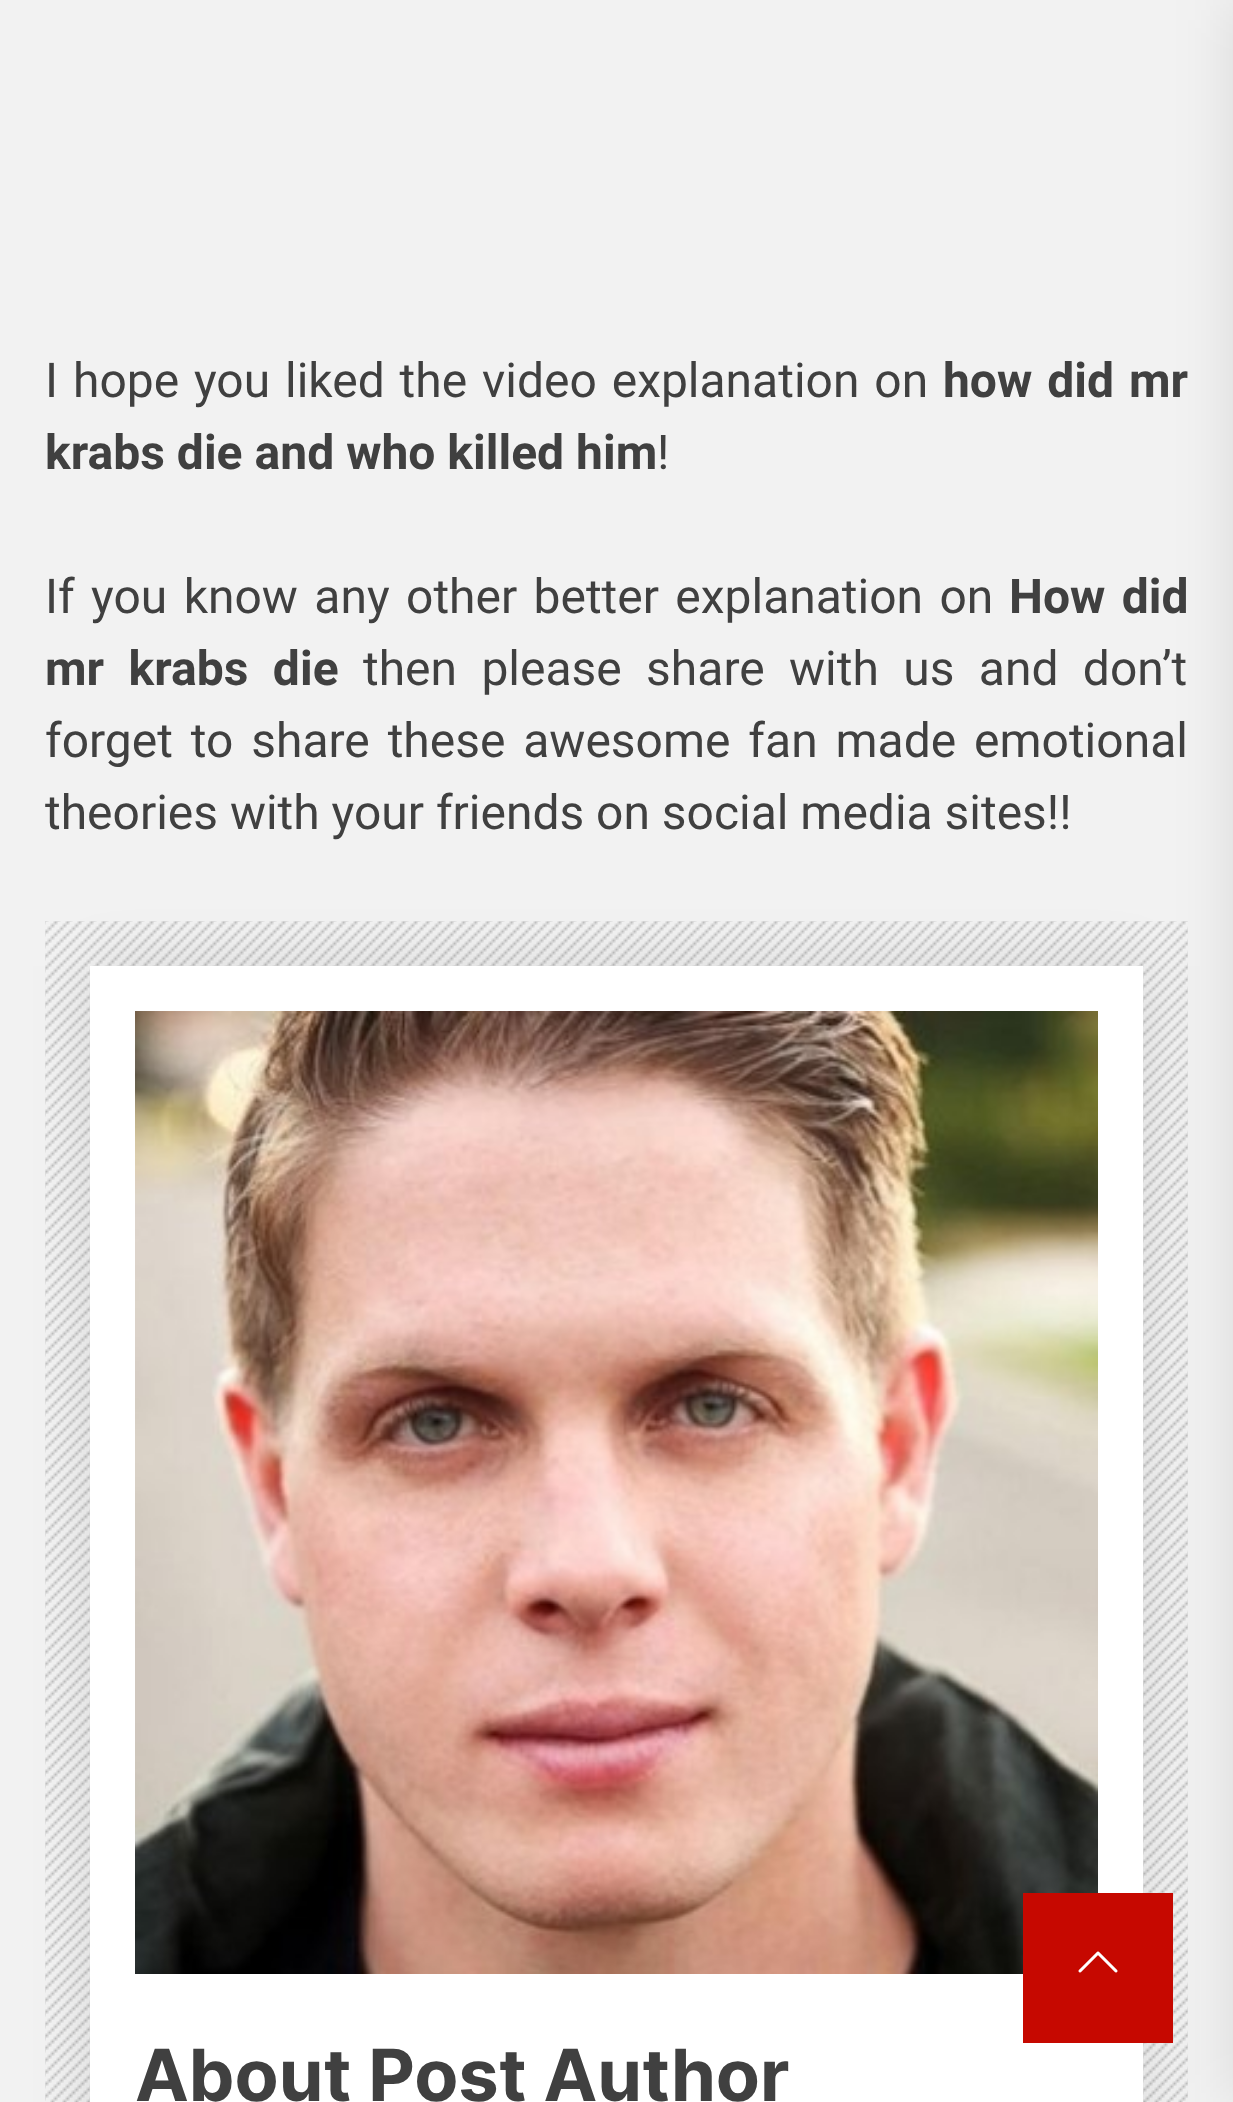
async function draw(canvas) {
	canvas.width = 1233;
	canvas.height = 2102;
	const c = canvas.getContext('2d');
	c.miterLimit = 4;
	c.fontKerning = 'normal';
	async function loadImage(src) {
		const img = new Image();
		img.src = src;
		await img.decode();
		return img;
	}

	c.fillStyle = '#f2f2f2';
	c.fillRect(0, 0, 1233, 2102);
	c.drawImage(await loadImage('img1.png'), 45, 921, 1143, 1181);
	c.fillStyle = '#0000001a';
	c.filter = 'blur(30px)';
	c.beginPath();
	c.rect(90, 966, 1053, 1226);
	c.fill();
	c.filter = 'none';
	c.fillStyle = '#fff';
	c.fillRect(90, 966, 1053, 1136);
	c.fillStyle = '#0000001a';
	c.filter = 'blur(30px)';
	c.beginPath();
	c.rect(1233, 0, 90, 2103);
	c.fill();
	c.filter = 'none';
	c.wordSpacing = '3px';
	c.font = '48px Roboto';
	c.fillStyle = '#404040';
	c.fillText('I hope you liked the video explanation on', 45, 397);
	c.font = 'bold 48px Roboto';
	c.fillText('how did mr', 943, 397);
	c.wordSpacing = '0px';
	c.fillText('krabs die and who killed him', 45, 469);
	c.font = '48px Roboto';
	c.fillText('!', 657, 469);
	c.wordSpacing = '4.5px';
	c.fillText('If you know any other better explanation on', 45, 613);
	c.font = 'bold 48px Roboto';
	c.fillText('How did', 1009, 613);
	c.wordSpacing = '12.5px';
	c.fillText('mr krabs die', 45, 685);
	c.font = '48px Roboto';
	c.fillText('then please share with us and don’t', 363, 685);
	c.wordSpacing = '6px';
	c.fillText('forget to share these awesome fan made emotional', 45, 757);
	c.wordSpacing = '0px';
	c.fillText('theories with your friends on social media sites!!', 45, 829);
	c.drawImage(await loadImage('img2.png'), 135, 1011, 963, 963);
	c.font = 'bold 72px Inter';
	c.fillText('About Post Author', 135, 2101);
	c.fillStyle = '#c60800';
	c.fillRect(1023, 1893, 150, 150);
	c.drawImage(await loadImage('img3.png'), 1078, 1951, 40, 22);
}

draw(document.querySelector('canvas'));
